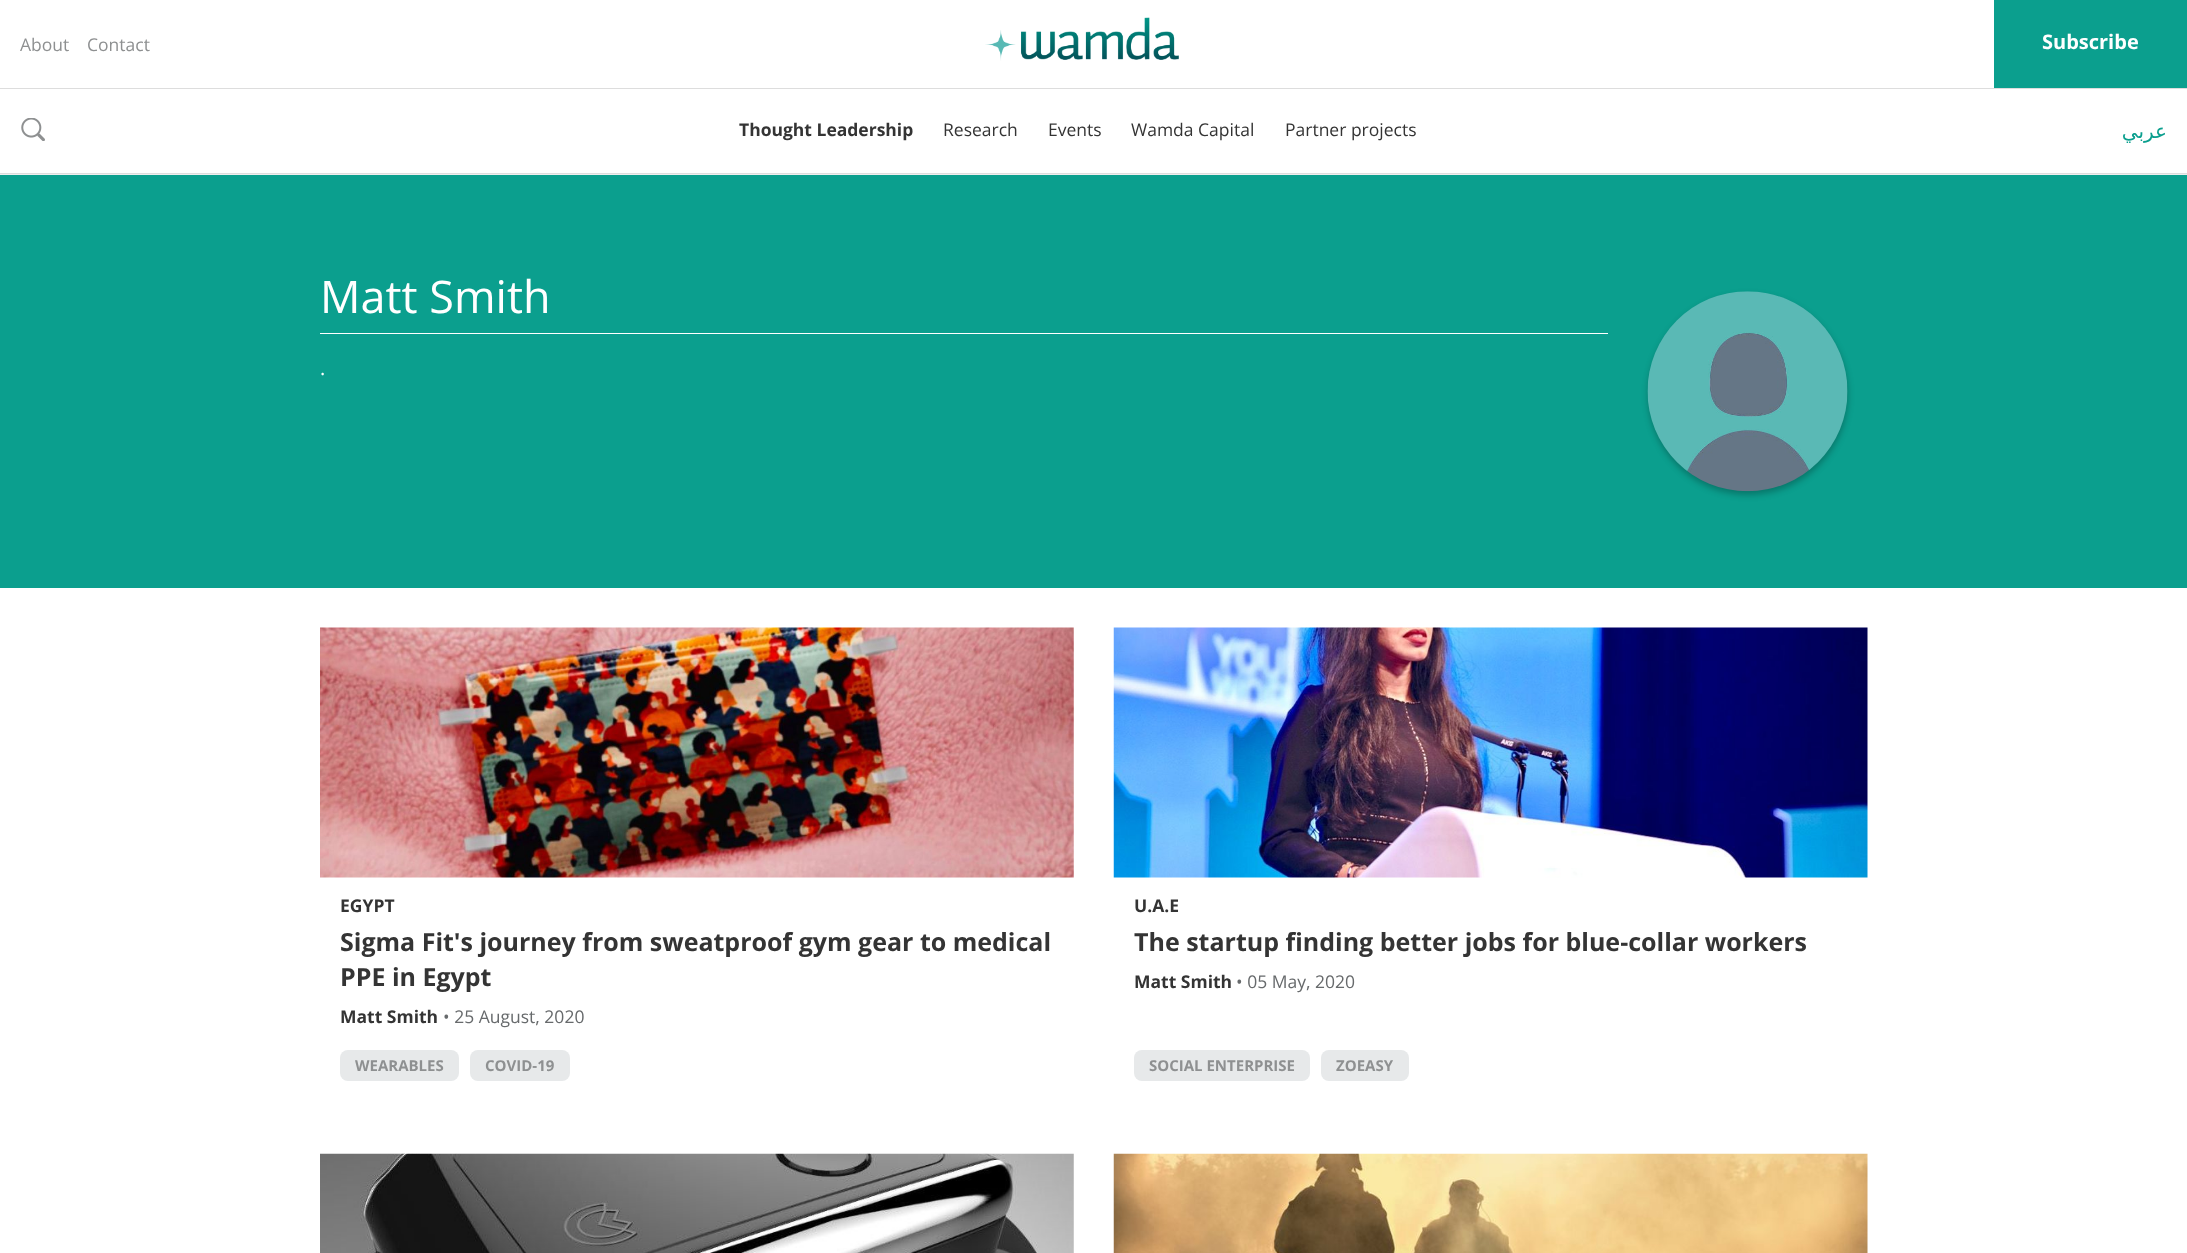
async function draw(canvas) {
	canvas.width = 2187;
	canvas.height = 1253;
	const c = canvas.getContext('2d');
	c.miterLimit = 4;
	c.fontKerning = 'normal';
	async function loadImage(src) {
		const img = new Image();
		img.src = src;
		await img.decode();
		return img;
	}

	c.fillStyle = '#fff';
	c.fillRect(0, 0, 2187, 1253);
	c.fillStyle = '#eee';
	c.fillRect(0, 174, 2187, 1);
	c.font = '17.5px Open Sans';
	c.fillStyle = '#8e9091';
	c.fillText('About', 20, 51);
	c.fillText('Contact', 87, 51);
	c.drawImage(await loadImage('img1.png'), 985, 17, 194, 44);
	c.fillStyle = '#0b9f8e';
	c.fillRect(1994, 0, 193, 88);
	c.font = 'bold 20px Open Sans';
	c.fillStyle = '#fff';
	c.fillText('Subscribe', 2042, 49);
	c.fillStyle = '#ddd';
	c.fillRect(0, 88, 2187, 1);
	c.fillRect(0, 173, 2187, 1);
	c.drawImage(await loadImage('img2.png'), 21, 118, 24, 23);
	c.font = 'bold 17.5px Open Sans';
	c.fillStyle = '#343434';
	c.fillText('Thought Leadership', 739, 136);
	c.font = '17.5px Open Sans';
	for (const [text, x, y] of [
		['Research', 943, 136],
		['Events', 1048, 136],
		['Wamda Capital', 1131, 136],
		['Partner projects', 1285, 136],
	]) {
		c.fillText(text, x, y);
	}
	c.direction = 'rtl';
	c.font = '20px DejaVu Sans';
	c.fillStyle = '#0b9f8e';
	c.fillText('عربي', 2167, 138);
	c.fillRect(0, 175, 2187, 413);
	c.fillStyle = '#fff';
	c.fillRect(320, 333, 1288, 1);
	c.direction = 'ltr';
	c.font = '45px Open Sans';
	c.fillText('Matt Smith', 320, 313);
	c.font = '20px Open Sans';
	c.fillText('.', 320, 375);
	c.fillStyle = '#00000040';
	c.filter = 'blur(3px)';
	c.beginPath();
	c.roundRect(1648, 295, 200, 200, 100);
	c.fill();
	c.filter = 'none';
	c.drawImage(await loadImage('img3.png'), 1647, 291, 201, 201);
	c.drawImage(await loadImage('img4.png'), 320, 627, 754, 251);
	c.font = 'bold 17.5px Open Sans';
	c.fillStyle = '#343434';
	c.fillText('EGYPT', 340, 912);
	c.font = 'bold 25px Open Sans';
	c.fillText('Sigma Fit\'s journey from sweatproof gym gear to medical', 340, 951);
	c.fillText('PPE in Egypt', 340, 986);
	c.font = 'bold 17.5px Open Sans';
	c.fillText('Matt Smith', 340, 1023);
	c.font = '17.5px Open Sans';
	c.fillStyle = '#676a6c';
	c.fillText('• 25 August, 2020', 443, 1023);
	c.fillStyle = '#e7e9ea';
	c.beginPath();
	c.roundRect(340, 1050, 119, 31, 8);
	c.fill();
	c.font = 'bold 15px Open Sans';
	c.fillStyle = '#8e9091';
	c.fillText('WEARABLES', 355, 1071);
	c.fillStyle = '#e7e9ea';
	c.beginPath();
	c.roundRect(470, 1050, 100, 31, 8);
	c.fill();
	c.fillStyle = '#8e9091';
	c.fillText('COVID-19', 485, 1071);
	c.drawImage(await loadImage('img5.png'), 1113, 627, 755, 251);
	c.font = 'bold 17.5px Open Sans';
	c.fillStyle = '#343434';
	c.fillText('U.A.E', 1134, 912);
	c.font = 'bold 25px Open Sans';
	c.fillText('The startup finding better jobs for blue-collar workers', 1134, 951);
	c.font = 'bold 17.5px Open Sans';
	c.fillText('Matt Smith', 1134, 988);
	c.font = '17.5px Open Sans';
	c.fillStyle = '#676a6c';
	c.fillText('• 05 May, 2020', 1236, 988);
	c.fillStyle = '#e7e9ea';
	c.beginPath();
	c.roundRect(1134, 1050, 176, 31, 8);
	c.fill();
	c.font = 'bold 15px Open Sans';
	c.fillStyle = '#8e9091';
	c.fillText('SOCIAL ENTERPRISE', 1149, 1071);
	c.fillStyle = '#e7e9ea';
	c.beginPath();
	c.roundRect(1321, 1050, 88, 31, 8);
	c.fill();
	c.fillStyle = '#8e9091';
	c.fillText('ZOEASY', 1336, 1071);
	c.drawImage(await loadImage('img6.png'), 320, 1153, 754, 100);
	c.drawImage(await loadImage('img7.png'), 1113, 1153, 755, 100);
}

draw(document.querySelector('canvas'));
